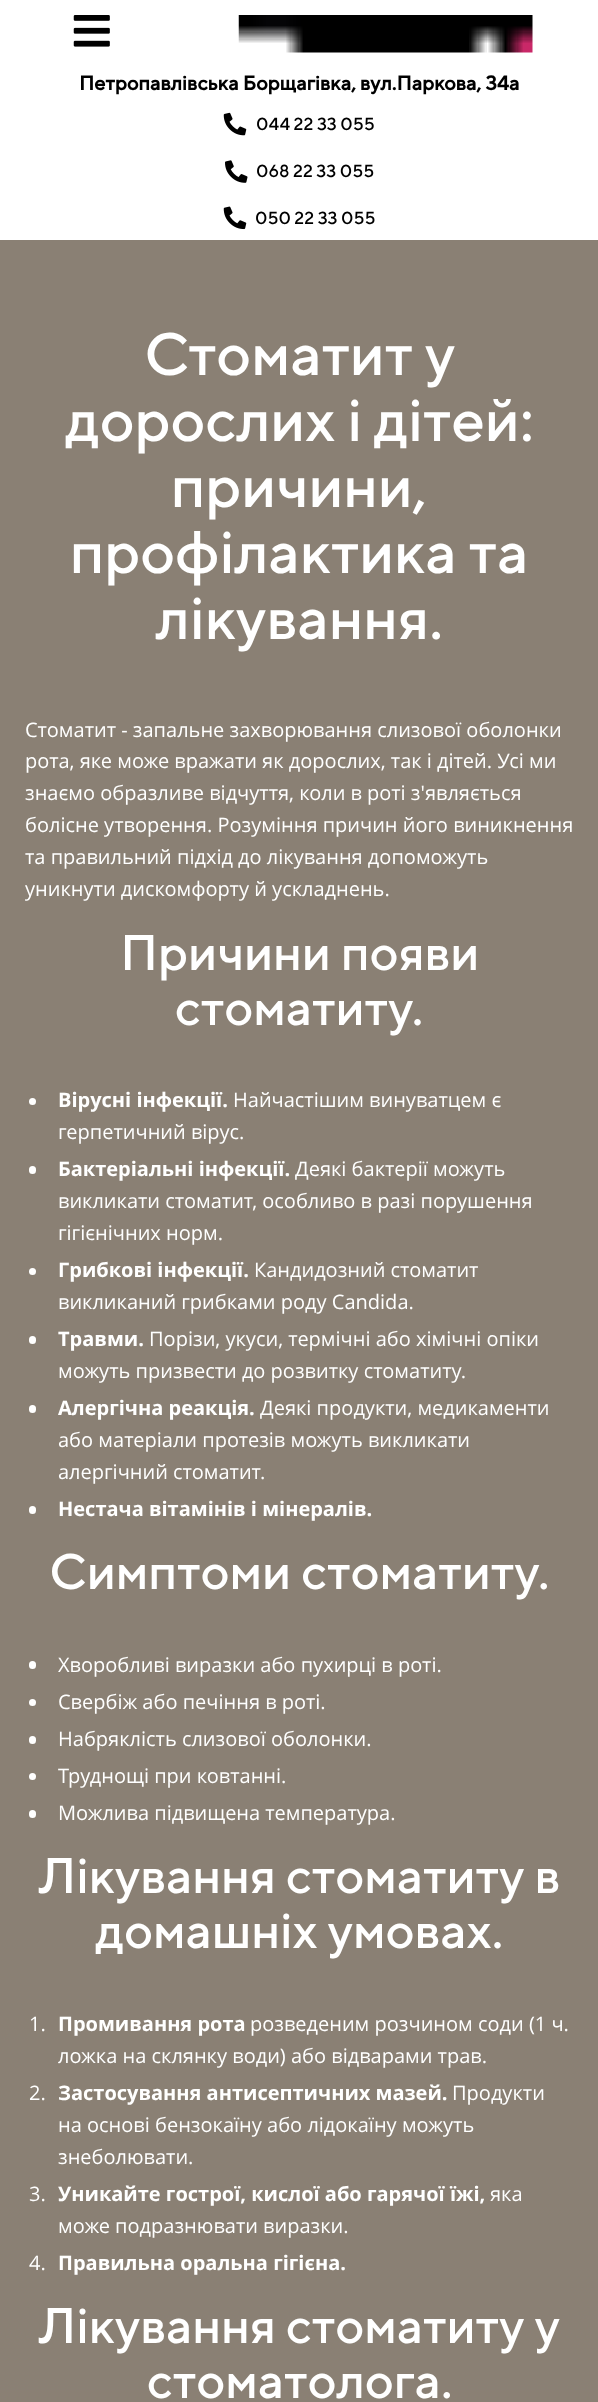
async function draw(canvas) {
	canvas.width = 598;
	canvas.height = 2402;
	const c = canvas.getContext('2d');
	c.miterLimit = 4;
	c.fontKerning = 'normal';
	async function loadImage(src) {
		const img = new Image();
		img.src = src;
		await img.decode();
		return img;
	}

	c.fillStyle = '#fff';
	c.fillRect(0, 0, 598, 2402);
	c.drawImage(await loadImage('img1.png'), 73, 15, 37, 32);
	c.drawImage(await loadImage('img2.png'), 238, 15, 295, 38);
	c.font = 'bold 20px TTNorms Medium';
	c.fillStyle = '#000';
	c.fillText('Петропавлівська Борщагівка, вул.Паркова, 34а', 79, 90);
	c.drawImage(await loadImage('img3.png'), 223, 112, 24, 24);
	c.font = '17.5px TTNorms Medium';
	c.fillText('044 22 33 055', 256, 130);
	c.drawImage(await loadImage('img4.png'), 225, 160, 23, 23);
	c.fillText('068 22 33 055', 256, 177);
	c.drawImage(await loadImage('img5.png'), 223, 206, 24, 24);
	c.fillText('050 22 33 055', 255, 224);
	c.fillStyle = '#8a8074';
	c.fillRect(0, 240, 598, 2162);
	c.font = '60px TTNorms Medium';
	c.fillStyle = '#fff';
	for (const [text, x, y] of [
		['Стоматит у', 144, 375],
		['дорослих і дітей:', 66, 441],
		['причини,', 171, 507],
		['профілактика та', 70, 573],
		['лікування.', 156, 639],
	]) {
		c.fillText(text, x, y);
	}
	c.font = '20px Open Sans';
	for (const [text, x, y] of [
		['Стоматит - запальне захворювання слизової оболонки', 25, 737],
		['рота, яке може вражати як дорослих, так і дітей. Усі ми', 25, 768],
		['знаємо образливе відчуття, коли в роті з\'являється', 25, 800],
		['болісне утворення. Розуміння причин його виникнення', 25, 832],
		['та правильний підхід до лікування допоможуть', 25, 864],
		['уникнути дискомфорту й ускладнень.', 25, 896],
	]) {
		c.fillText(text, x, y);
	}
	c.font = '50px TTNorms Medium';
	c.fillText('Причини появи', 120, 970);
	c.fillText('стоматиту.', 175, 1025);
	c.beginPath();
	c.arc(32.5, 1101.5, 3.5, 0, 2 * Math.PI);
	c.fill();
	c.font = 'bold 20px Open Sans';
	c.fillText('Вірусні інфекції.', 58, 1107);
	c.font = '20px Open Sans';
	c.fillText('Найчастішим винуватцем є', 233, 1107);
	c.fillText('герпетичний вірус.', 58, 1139);
	c.beginPath();
	c.roundRect(29, 1166, 7, 8, 3.5);
	c.fill();
	c.font = 'bold 20px Open Sans';
	c.fillText('Бактеріальні інфекції.', 58, 1176);
	c.font = '20px Open Sans';
	for (const [text, x, y] of [
		['Деякі бактерії можуть', 295, 1176],
		['викликати стоматит, особливо в разі порушення', 58, 1208],
		['гігієнічних норм.', 58, 1240],
	]) {
		c.fillText(text, x, y);
	}
	c.beginPath();
	c.arc(32.5, 1271.5, 3.5, 0, 2 * Math.PI);
	c.fill();
	c.font = 'bold 20px Open Sans';
	c.fillText('Грибкові інфекції.', 58, 1277);
	c.font = '20px Open Sans';
	c.fillText('Кандидозний стоматит', 254, 1277);
	c.fillText('викликаний грибками роду Candida.', 58, 1309);
	c.beginPath();
	c.roundRect(29, 1336, 7, 8, 3.5);
	c.fill();
	c.font = 'bold 20px Open Sans';
	c.fillText('Травми.', 58, 1346);
	c.font = '20px Open Sans';
	c.fillText('Порізи, укуси, термічні або хімічні опіки', 149, 1346);
	c.fillText('можуть призвести до розвитку стоматиту.', 58, 1378);
	c.beginPath();
	c.roundRect(29, 1405, 7, 8, 3.5);
	c.fill();
	c.font = 'bold 20px Open Sans';
	c.fillText('Алергічна реакція.', 58, 1415);
	c.font = '20px Open Sans';
	for (const [text, x, y] of [
		['Деякі продукти, медикаменти', 260, 1415],
		['або матеріали протезів можуть викликати', 58, 1447],
		['алергічний стоматит.', 58, 1479],
	]) {
		c.fillText(text, x, y);
	}
	c.beginPath();
	c.roundRect(29, 1506, 7, 8, 3.5);
	c.fill();
	c.font = 'bold 20px Open Sans';
	c.fillText('Нестача вітамінів і мінералів.', 58, 1516);
	c.font = '50px TTNorms Medium';
	c.fillText('Симптоми стоматиту.', 49, 1589);
	c.beginPath();
	c.roundRect(29, 1661, 7, 8, 3.5);
	c.fill();
	c.font = '20px Open Sans';
	c.fillText('Хворобливі виразки або пухирці в роті.', 58, 1672);
	c.beginPath();
	c.arc(32.5, 1702.5, 3.5, 0, 2 * Math.PI);
	c.fill();
	c.fillText('Свербіж або печіння в роті.', 58, 1709);
	c.beginPath();
	c.roundRect(29, 1736, 7, 8, 3.5);
	c.fill();
	c.fillText('Набряклість слизової оболонки.', 58, 1746);
	c.beginPath();
	c.arc(32.5, 1776.5, 3.5, 0, 2 * Math.PI);
	c.fill();
	c.fillText('Труднощі при ковтанні.', 58, 1783);
	c.beginPath();
	c.roundRect(29, 1810, 7, 8, 3.5);
	c.fill();
	c.fillText('Можлива підвищена температура.', 58, 1820);
	c.font = '50px TTNorms Medium';
	c.fillText('Лікування стоматиту в', 39, 1893);
	c.fillText('домашніх умовах.', 96, 1948);
	c.font = '20px Open Sans';
	c.fillText('1.', 29, 2031);
	c.font = 'bold 20px Open Sans';
	c.fillText('Промивання рота', 58, 2031);
	c.font = '20px Open Sans';
	for (const [text, x, y] of [
		['розведеним розчином соди (1 ч.', 250, 2031],
		['ложка на склянку води) або відварами трав.', 58, 2063],
		['2.', 29, 2100],
	]) {
		c.fillText(text, x, y);
	}
	c.font = 'bold 20px Open Sans';
	c.fillText('Застосування антисептичних мазей.', 58, 2100);
	c.font = '20px Open Sans';
	for (const [text, x, y] of [
		['Продукти', 452, 2100],
		['на основі бензокаїну або лідокаїну можуть', 58, 2132],
		['знеболювати.', 58, 2164],
		['3.', 29, 2201],
	]) {
		c.fillText(text, x, y);
	}
	c.font = 'bold 20px Open Sans';
	c.fillText('Уникайте гострої, кислої або гарячої їжі,', 58, 2201);
	c.font = '20px Open Sans';
	for (const [text, x, y] of [
		['яка', 490, 2201],
		['може подразнювати виразки.', 58, 2233],
		['4.', 29, 2270],
	]) {
		c.fillText(text, x, y);
	}
	c.font = 'bold 20px Open Sans';
	c.fillText('Правильна оральна гігієна.', 58, 2270);
	c.font = '50px TTNorms Medium';
	c.fillText('Лікування стоматиту у', 39, 2343);
	c.fillText('стоматолога.', 147, 2398);
}

draw(document.querySelector('canvas'));
